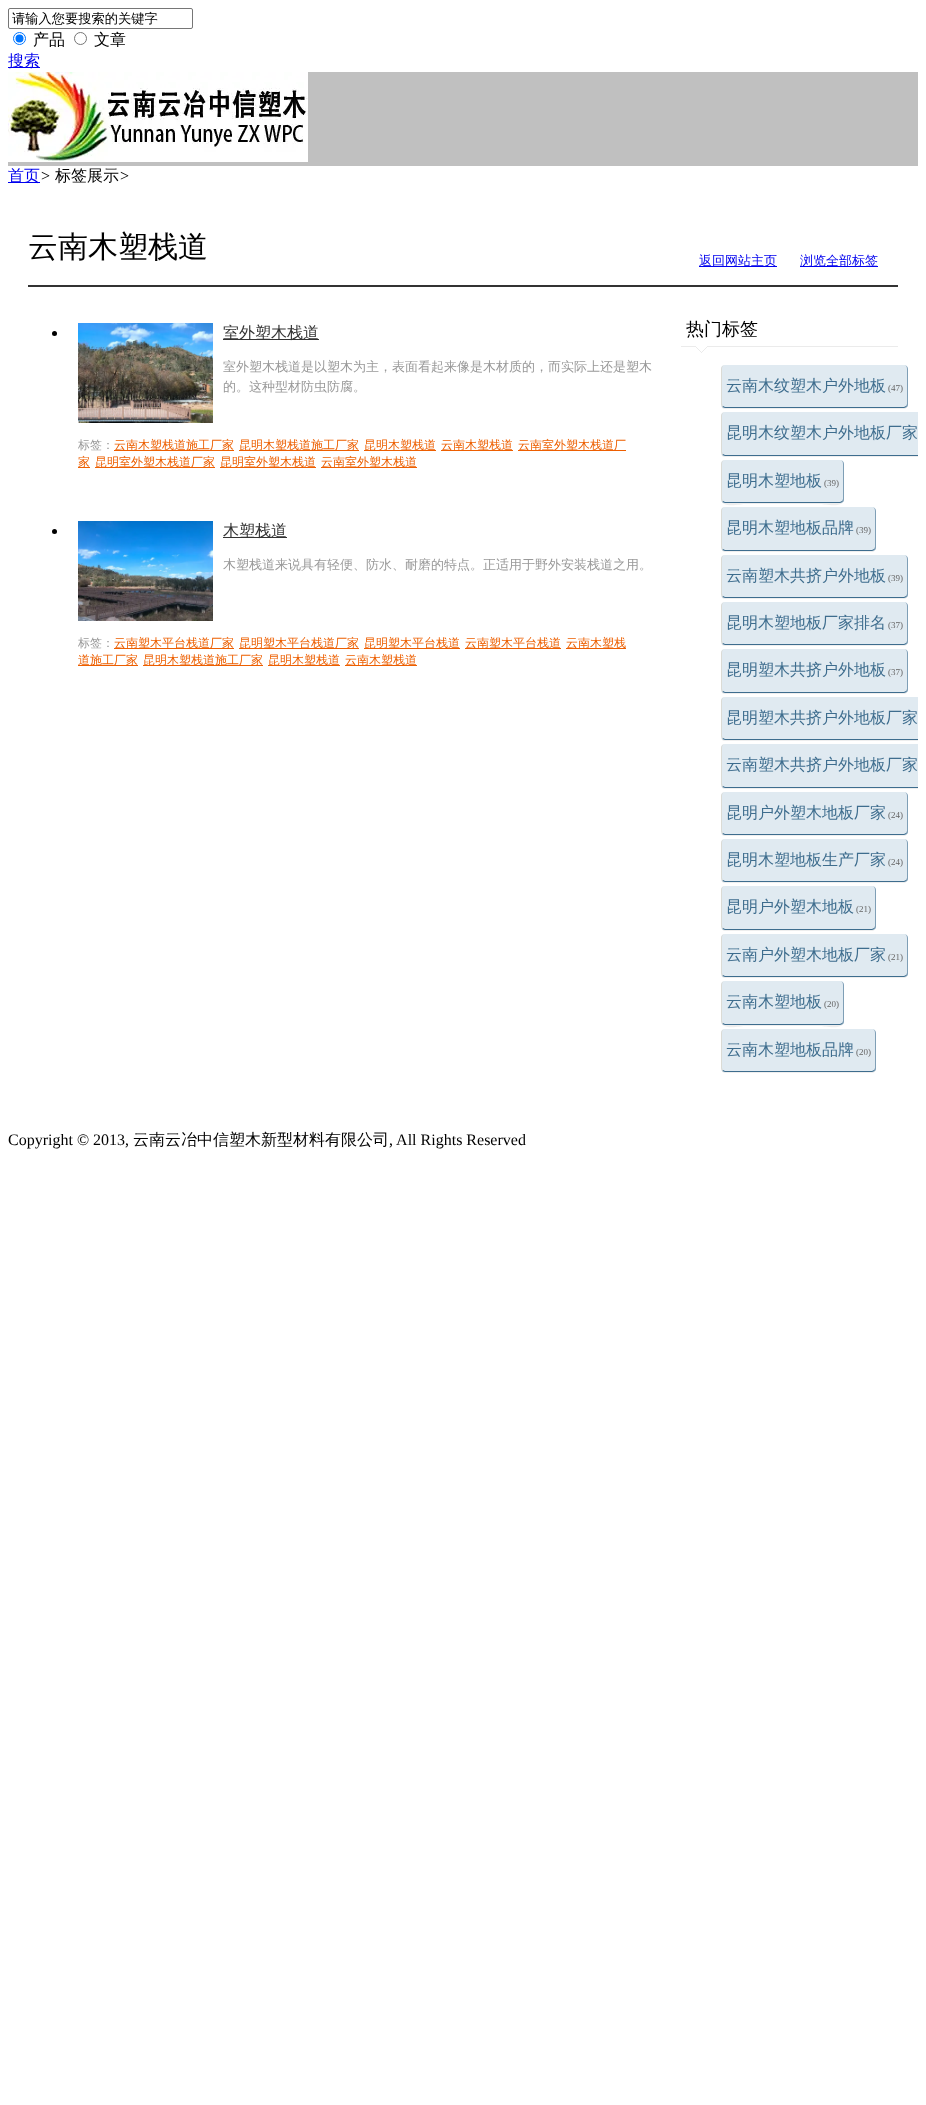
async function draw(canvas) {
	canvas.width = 926;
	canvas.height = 2105;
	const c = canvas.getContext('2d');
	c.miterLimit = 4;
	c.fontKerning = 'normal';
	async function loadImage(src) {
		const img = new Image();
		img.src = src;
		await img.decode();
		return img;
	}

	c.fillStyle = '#fff';
	c.fillRect(0, 0, 926, 2105);
	c.beginPath();
	c.roundRect(8.5, 8.5, 184, 20, 1.5);
	c.strokeStyle = '#767676';
	c.stroke();
	c.font = '500 13.25px WenQuanYi Zen Hei';
	c.fillStyle = '#000';
	c.fillText('请输入您要搜索的关键字', 12, 23);
	c.beginPath();
	c.arc(19.5, 38.5, 6, 0, 2 * Math.PI);
	c.strokeStyle = '#0075ff';
	c.stroke();
	c.fillStyle = '#0075ff';
	c.beginPath();
	c.arc(19.5, 38.5, 4, 0, 2 * Math.PI);
	c.fill();
	c.font = '500 16px WenQuanYi Zen Hei';
	c.fillStyle = '#000';
	c.fillText('产品', 33, 45);
	c.beginPath();
	c.arc(80.5, 38.5, 6, 0, 2 * Math.PI);
	c.strokeStyle = '#767676';
	c.stroke();
	c.fillText('文章', 94, 45);
	c.fillStyle = '#00e';
	c.fillRect(8, 67, 32, 1);
	c.fillText('搜索', 8, 66);
	c.fillStyle = '#c0c0c0';
	c.fillRect(8, 72, 910, 94);
	c.drawImage(await loadImage('img1.png'), 8, 72, 300, 90);
	c.fillStyle = '#00e';
	c.fillRect(8, 182, 32, 1);
	c.fillText('首页', 8, 181);
	c.font = 'italic 16px Liberation Serif';
	c.fillStyle = '#000';
	c.fillText('>', 40, 181);
	c.font = '500 16px WenQuanYi Zen Hei';
	c.fillText('标签展示', 55, 181);
	c.font = 'italic 16px Liberation Serif';
	c.fillText('>', 119, 181);
	c.fillStyle = '#333';
	c.fillRect(28, 285, 870, 2);
	c.font = '500 30px WenQuanYi Zen Hei';
	c.fillStyle = '#000';
	c.fillText('云南木塑栈道', 28, 257);
	c.fillStyle = '#00e';
	c.fillRect(699, 266, 78, 1);
	c.font = '500 13px WenQuanYi Zen Hei';
	c.fillText('返回网站主页', 699, 265);
	c.fillRect(800, 266, 78, 1);
	c.fillText('浏览全部标签', 800, 265);
	c.fillStyle = '#000';
	c.beginPath();
	c.arc(54.5, 333.5, 2.5, 0, 2 * Math.PI);
	c.fill();
	c.drawImage(await loadImage('img2.png'), 78, 323, 135, 100);
	c.fillStyle = '#333';
	c.fillRect(223, 339, 96, 1);
	c.font = '500 16px WenQuanYi Zen Hei';
	c.fillText('室外塑木栈道', 223, 338);
	c.font = '500 13px WenQuanYi Zen Hei';
	c.fillStyle = '#999';
	c.fillText('室外塑木栈道是以塑木为主，表面看起来像是木材质的，而实际上还是塑木', 223, 371);
	c.fillText('的。这种型材防虫防腐。', 223, 391);
	c.font = '500 12px WenQuanYi Zen Hei';
	c.fillText('标签：', 78, 449);
	c.fillStyle = '#ed5f01';
	c.fillRect(114, 450, 120, 1);
	c.fillText('云南木塑栈道施工厂家', 114, 449);
	c.fillRect(239, 450, 120, 1);
	c.fillText('昆明木塑栈道施工厂家', 239, 449);
	c.fillRect(364, 450, 72, 1);
	c.fillText('昆明木塑栈道', 364, 449);
	c.fillRect(441, 450, 72, 1);
	c.fillText('云南木塑栈道', 441, 449);
	c.fillRect(518, 450, 108, 1);
	c.fillText('云南室外塑木栈道厂', 518, 449);
	c.fillRect(78, 467, 12, 1);
	c.fillText('家', 78, 466);
	c.fillRect(95, 467, 120, 1);
	c.fillText('昆明室外塑木栈道厂家', 95, 466);
	c.fillRect(220, 467, 96, 1);
	c.fillText('昆明室外塑木栈道', 220, 466);
	c.fillRect(321, 467, 96, 1);
	c.fillText('云南室外塑木栈道', 321, 466);
	c.fillStyle = '#000';
	c.beginPath();
	c.arc(54.5, 531.5, 2.5, 0, 2 * Math.PI);
	c.fill();
	c.drawImage(await loadImage('img3.png'), 78, 521, 135, 100);
	c.fillStyle = '#333';
	c.fillRect(223, 537, 64, 1);
	c.font = '500 16px WenQuanYi Zen Hei';
	c.fillText('木塑栈道', 223, 536);
	c.font = '500 13px WenQuanYi Zen Hei';
	c.fillStyle = '#999';
	c.fillText('木塑栈道来说具有轻便、防水、耐磨的特点。正适用于野外安装栈道之用。', 223, 569);
	c.font = '500 12px WenQuanYi Zen Hei';
	c.fillText('标签：', 78, 647);
	c.fillStyle = '#ed5f01';
	c.fillRect(114, 648, 120, 1);
	c.fillText('云南塑木平台栈道厂家', 114, 647);
	c.fillRect(239, 648, 120, 1);
	c.fillText('昆明塑木平台栈道厂家', 239, 647);
	c.fillRect(364, 648, 96, 1);
	c.fillText('昆明塑木平台栈道', 364, 647);
	c.fillRect(465, 648, 96, 1);
	c.fillText('云南塑木平台栈道', 465, 647);
	c.fillRect(566, 648, 60, 1);
	c.fillText('云南木塑栈', 566, 647);
	c.fillRect(78, 665, 60, 1);
	c.fillText('道施工厂家', 78, 664);
	c.fillRect(143, 665, 120, 1);
	c.fillText('昆明木塑栈道施工厂家', 143, 664);
	c.fillRect(268, 665, 72, 1);
	c.fillText('昆明木塑栈道', 268, 664);
	c.fillRect(345, 665, 72, 1);
	c.fillText('云南木塑栈道', 345, 664);
	c.fillStyle = '#ebebeb';
	c.fillRect(681, 346, 217, 1);
	c.font = '500 18px WenQuanYi Zen Hei';
	c.fillStyle = '#000';
	c.fillText('热门标签', 686, 335);
	c.drawImage(await loadImage('img4.png'), 696, 346, 11, 7);
	c.fillStyle = '#eee';
	c.beginPath();
	c.moveTo(721, 404);
	c.bezierCurveTo(721, 407, 722, 409, 725, 409);
	c.lineTo(905, 409);
	c.bezierCurveTo(907, 408, 908, 406, 908, 404);
	c.bezierCurveTo(908, 406, 906, 408, 904, 408);
	c.lineTo(725, 408);
	c.bezierCurveTo(723, 408, 721, 406, 721, 404);
	c.closePath();
	c.fill();
	c.fillStyle = '#e0eaf1';
	c.beginPath();
	c.roundRect(721, 365, 187, 43, 4);
	c.fill();
	c.fillStyle = '#7f9fb6';
	c.beginPath();
	c.moveTo(908, 369);
	c.bezierCurveTo(908, 367, 906, 365, 904, 365);
	c.bezierCurveTo(906, 365, 907, 367, 907, 369);
	c.lineTo(907, 404);
	c.lineTo(906, 406);
	c.lineTo(907, 407);
	c.bezierCurveTo(908, 406, 908, 405, 908, 404);
	c.closePath();
	c.fill();
	c.fillStyle = '#3e6d8e';
	c.beginPath();
	c.moveTo(725, 408);
	c.lineTo(904, 408);
	c.lineTo(907, 407);
	c.lineTo(906, 406);
	c.lineTo(904, 407);
	c.lineTo(725, 407);
	c.lineTo(723, 406);
	c.lineTo(722, 407);
	c.closePath();
	c.fill();
	c.fillStyle = '#dbdbd5';
	c.beginPath();
	c.moveTo(725, 365);
	c.bezierCurveTo(723, 365, 721, 367, 721, 369);
	c.lineTo(721, 404);
	c.bezierCurveTo(721, 405, 722, 406, 722, 407);
	c.lineTo(723, 406);
	c.lineTo(722, 404);
	c.lineTo(722, 369);
	c.bezierCurveTo(722, 367, 723, 365, 725, 365);
	c.closePath();
	c.fill();
	c.font = '500 16px WenQuanYi Zen Hei';
	c.fillStyle = '#3e6d8e';
	c.fillText('云南木纹塑木户外地板', 726, 391);
	c.font = '9px Liberation Serif';
	c.fillStyle = '#666';
	c.fillText('(47)', 888, 391);
	c.save();
	c.beginPath();
	c.rect(8, 187, 910, 927);
	c.clip();
	c.fillStyle = '#eee';
	c.beginPath();
	c.moveTo(721, 452);
	c.bezierCurveTo(721, 455, 722, 457, 725, 457);
	c.lineTo(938, 457);
	c.bezierCurveTo(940, 456, 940, 454, 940, 452);
	c.bezierCurveTo(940, 454, 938, 456, 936, 456);
	c.lineTo(725, 456);
	c.bezierCurveTo(723, 456, 721, 454, 721, 452);
	c.closePath();
	c.fill();
	c.restore();
	c.fillStyle = '#e0eaf1';
	c.beginPath();
	c.roundRect(721, 412, 197, 44, [4, 0, 0, 4]);
	c.fill();
	c.save();
	c.beginPath();
	c.rect(8, 187, 910, 927);
	c.clip();
	c.fillStyle = '#3e6d8e';
	c.beginPath();
	c.moveTo(725, 456);
	c.lineTo(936, 456);
	c.bezierCurveTo(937, 456, 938, 456, 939, 455);
	c.lineTo(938, 454);
	c.lineTo(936, 455);
	c.lineTo(725, 455);
	c.lineTo(723, 454);
	c.lineTo(722, 455);
	c.closePath();
	c.fill();
	c.restore();
	c.fillStyle = '#dbdbd5';
	c.beginPath();
	c.moveTo(725, 412);
	c.bezierCurveTo(723, 412, 721, 414, 721, 416);
	c.lineTo(721, 452);
	c.bezierCurveTo(721, 453, 722, 454, 722, 455);
	c.lineTo(723, 454);
	c.lineTo(722, 452);
	c.lineTo(722, 416);
	c.bezierCurveTo(722, 414, 723, 412, 725, 412);
	c.closePath();
	c.fill();
	c.font = '500 16px WenQuanYi Zen Hei';
	c.fillStyle = '#3e6d8e';
	c.fillText('昆明木纹塑木户外地板厂家', 726, 438);
	c.fillStyle = '#eee';
	c.beginPath();
	c.moveTo(721, 499);
	c.bezierCurveTo(721, 509, 741, 504, 744, 504);
	c.lineTo(821, 504);
	c.bezierCurveTo(824, 504, 844, 509, 844, 499);
	c.bezierCurveTo(844, 501, 842, 503, 840, 503);
	c.lineTo(725, 503);
	c.bezierCurveTo(723, 503, 721, 501, 721, 499);
	c.closePath();
	c.fill();
	c.fillStyle = '#e0eaf1';
	c.beginPath();
	c.roundRect(721, 460, 123, 43, 4);
	c.fill();
	c.fillStyle = '#7f9fb6';
	c.beginPath();
	c.moveTo(844, 464);
	c.bezierCurveTo(844, 462, 842, 460, 840, 460);
	c.bezierCurveTo(842, 460, 843, 462, 843, 464);
	c.lineTo(843, 499);
	c.lineTo(842, 501);
	c.lineTo(843, 502);
	c.bezierCurveTo(844, 501, 844, 500, 844, 499);
	c.closePath();
	c.fill();
	c.fillStyle = '#3e6d8e';
	c.beginPath();
	c.moveTo(725, 503);
	c.lineTo(840, 503);
	c.lineTo(843, 502);
	c.lineTo(842, 501);
	c.lineTo(840, 502);
	c.lineTo(725, 502);
	c.lineTo(723, 501);
	c.lineTo(722, 502);
	c.closePath();
	c.fill();
	c.fillStyle = '#dbdbd5';
	c.beginPath();
	c.moveTo(725, 460);
	c.bezierCurveTo(723, 460, 721, 462, 721, 464);
	c.lineTo(721, 499);
	c.bezierCurveTo(721, 500, 722, 501, 722, 502);
	c.lineTo(723, 501);
	c.lineTo(722, 499);
	c.lineTo(722, 464);
	c.bezierCurveTo(722, 462, 723, 460, 725, 460);
	c.closePath();
	c.fill();
	c.fillStyle = '#3e6d8e';
	c.fillText('昆明木塑地板', 726, 486);
	c.font = '9px Liberation Serif';
	c.fillStyle = '#666';
	c.fillText('(39)', 824, 486);
	c.fillStyle = '#eee';
	c.beginPath();
	c.moveTo(721, 547);
	c.bezierCurveTo(721, 549, 722, 551, 724, 552);
	c.lineTo(873, 552);
	c.bezierCurveTo(875, 551, 876, 549, 876, 547);
	c.lineTo(875, 550);
	c.lineTo(872, 551);
	c.lineTo(725, 551);
	c.bezierCurveTo(723, 551, 721, 549, 721, 547);
	c.closePath();
	c.fill();
	c.fillStyle = '#e0eaf1';
	c.beginPath();
	c.roundRect(721, 507, 155, 44, 4);
	c.fill();
	c.fillStyle = '#7f9fb6';
	c.beginPath();
	c.moveTo(876, 511);
	c.bezierCurveTo(876, 509, 874, 507, 872, 507);
	c.bezierCurveTo(874, 507, 875, 509, 875, 511);
	c.lineTo(875, 547);
	c.lineTo(874, 549);
	c.lineTo(875, 550);
	c.bezierCurveTo(876, 549, 876, 548, 876, 547);
	c.closePath();
	c.fill();
	c.fillStyle = '#3e6d8e';
	c.beginPath();
	c.moveTo(725, 551);
	c.lineTo(872, 551);
	c.lineTo(875, 550);
	c.lineTo(874, 549);
	c.lineTo(872, 550);
	c.lineTo(725, 550);
	c.lineTo(723, 549);
	c.lineTo(722, 550);
	c.closePath();
	c.fill();
	c.fillStyle = '#dbdbd5';
	c.beginPath();
	c.moveTo(725, 507);
	c.bezierCurveTo(723, 507, 721, 509, 721, 511);
	c.lineTo(721, 547);
	c.bezierCurveTo(721, 548, 722, 549, 722, 550);
	c.lineTo(723, 549);
	c.lineTo(722, 547);
	c.lineTo(722, 511);
	c.bezierCurveTo(722, 509, 723, 507, 725, 507);
	c.closePath();
	c.fill();
	c.font = '500 16px WenQuanYi Zen Hei';
	c.fillStyle = '#3e6d8e';
	c.fillText('昆明木塑地板品牌', 726, 533);
	c.font = '9px Liberation Serif';
	c.fillStyle = '#666';
	c.fillText('(39)', 856, 533);
	c.fillStyle = '#eee';
	c.beginPath();
	c.moveTo(721, 594);
	c.bezierCurveTo(721, 597, 722, 599, 725, 599);
	c.lineTo(905, 599);
	c.bezierCurveTo(907, 598, 908, 596, 908, 594);
	c.bezierCurveTo(908, 596, 906, 598, 904, 598);
	c.lineTo(725, 598);
	c.bezierCurveTo(723, 598, 721, 596, 721, 594);
	c.closePath();
	c.fill();
	c.fillStyle = '#e0eaf1';
	c.beginPath();
	c.roundRect(721, 555, 187, 43, 4);
	c.fill();
	c.fillStyle = '#7f9fb6';
	c.beginPath();
	c.moveTo(908, 559);
	c.bezierCurveTo(908, 557, 906, 555, 904, 555);
	c.bezierCurveTo(906, 555, 907, 557, 907, 559);
	c.lineTo(907, 594);
	c.lineTo(906, 596);
	c.lineTo(907, 597);
	c.bezierCurveTo(908, 596, 908, 595, 908, 594);
	c.closePath();
	c.fill();
	c.fillStyle = '#3e6d8e';
	c.beginPath();
	c.moveTo(725, 598);
	c.lineTo(904, 598);
	c.lineTo(907, 597);
	c.lineTo(906, 596);
	c.lineTo(904, 597);
	c.lineTo(725, 597);
	c.lineTo(723, 596);
	c.lineTo(722, 597);
	c.closePath();
	c.fill();
	c.fillStyle = '#dbdbd5';
	c.beginPath();
	c.moveTo(725, 555);
	c.bezierCurveTo(723, 555, 721, 557, 721, 559);
	c.lineTo(721, 594);
	c.bezierCurveTo(721, 595, 722, 596, 722, 597);
	c.lineTo(723, 596);
	c.lineTo(722, 594);
	c.lineTo(722, 559);
	c.bezierCurveTo(722, 557, 723, 555, 725, 555);
	c.closePath();
	c.fill();
	c.font = '500 16px WenQuanYi Zen Hei';
	c.fillStyle = '#3e6d8e';
	c.fillText('云南塑木共挤户外地板', 726, 581);
	c.font = '9px Liberation Serif';
	c.fillStyle = '#666';
	c.fillText('(39)', 888, 581);
	c.fillStyle = '#eee';
	c.beginPath();
	c.moveTo(721, 641);
	c.bezierCurveTo(721, 644, 722, 646, 725, 646);
	c.lineTo(905, 646);
	c.bezierCurveTo(907, 645, 908, 643, 908, 641);
	c.bezierCurveTo(908, 643, 906, 645, 904, 645);
	c.lineTo(725, 645);
	c.bezierCurveTo(723, 645, 721, 643, 721, 641);
	c.closePath();
	c.fill();
	c.fillStyle = '#e0eaf1';
	c.beginPath();
	c.roundRect(721, 602, 187, 43, 4);
	c.fill();
	c.fillStyle = '#7f9fb6';
	c.beginPath();
	c.moveTo(908, 606);
	c.bezierCurveTo(908, 604, 906, 602, 904, 602);
	c.bezierCurveTo(906, 602, 907, 604, 907, 606);
	c.lineTo(907, 641);
	c.lineTo(906, 643);
	c.lineTo(907, 644);
	c.bezierCurveTo(908, 643, 908, 642, 908, 641);
	c.closePath();
	c.fill();
	c.fillStyle = '#3e6d8e';
	c.beginPath();
	c.moveTo(725, 645);
	c.lineTo(904, 645);
	c.lineTo(907, 644);
	c.lineTo(906, 643);
	c.lineTo(904, 644);
	c.lineTo(725, 644);
	c.lineTo(723, 643);
	c.lineTo(722, 644);
	c.closePath();
	c.fill();
	c.fillStyle = '#dbdbd5';
	c.beginPath();
	c.moveTo(725, 602);
	c.bezierCurveTo(723, 602, 721, 604, 721, 606);
	c.lineTo(721, 641);
	c.bezierCurveTo(721, 642, 722, 643, 722, 644);
	c.lineTo(723, 643);
	c.lineTo(722, 641);
	c.lineTo(722, 606);
	c.bezierCurveTo(722, 604, 723, 602, 725, 602);
	c.closePath();
	c.fill();
	c.font = '500 16px WenQuanYi Zen Hei';
	c.fillStyle = '#3e6d8e';
	c.fillText('昆明木塑地板厂家排名', 726, 628);
	c.font = '9px Liberation Serif';
	c.fillStyle = '#666';
	c.fillText('(37)', 888, 628);
	c.fillStyle = '#eee';
	c.beginPath();
	c.moveTo(721, 689);
	c.bezierCurveTo(721, 692, 722, 694, 725, 694);
	c.lineTo(905, 694);
	c.bezierCurveTo(907, 693, 908, 691, 908, 689);
	c.bezierCurveTo(908, 691, 906, 693, 904, 693);
	c.lineTo(725, 693);
	c.bezierCurveTo(723, 693, 721, 691, 721, 689);
	c.closePath();
	c.fill();
	c.fillStyle = '#e0eaf1';
	c.beginPath();
	c.roundRect(721, 649, 187, 44, 4);
	c.fill();
	c.fillStyle = '#7f9fb6';
	c.beginPath();
	c.moveTo(908, 653);
	c.bezierCurveTo(908, 651, 906, 649, 904, 649);
	c.bezierCurveTo(906, 649, 907, 651, 907, 653);
	c.lineTo(907, 689);
	c.lineTo(906, 691);
	c.lineTo(907, 692);
	c.bezierCurveTo(908, 691, 908, 690, 908, 689);
	c.closePath();
	c.fill();
	c.fillStyle = '#3e6d8e';
	c.beginPath();
	c.moveTo(725, 693);
	c.lineTo(904, 693);
	c.lineTo(907, 692);
	c.lineTo(906, 691);
	c.lineTo(904, 692);
	c.lineTo(725, 692);
	c.lineTo(723, 691);
	c.lineTo(722, 692);
	c.closePath();
	c.fill();
	c.fillStyle = '#dbdbd5';
	c.beginPath();
	c.moveTo(725, 649);
	c.bezierCurveTo(723, 649, 721, 651, 721, 653);
	c.lineTo(721, 689);
	c.bezierCurveTo(721, 690, 722, 691, 722, 692);
	c.lineTo(723, 691);
	c.lineTo(722, 689);
	c.lineTo(722, 653);
	c.bezierCurveTo(722, 651, 723, 649, 725, 649);
	c.closePath();
	c.fill();
	c.font = '500 16px WenQuanYi Zen Hei';
	c.fillStyle = '#3e6d8e';
	c.fillText('昆明塑木共挤户外地板', 726, 675);
	c.font = '9px Liberation Serif';
	c.fillStyle = '#666';
	c.fillText('(37)', 888, 675);
	c.save();
	c.beginPath();
	c.rect(8, 187, 910, 927);
	c.clip();
	c.fillStyle = '#eee';
	c.beginPath();
	c.moveTo(721, 736);
	c.bezierCurveTo(721, 739, 722, 741, 725, 741);
	c.lineTo(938, 741);
	c.bezierCurveTo(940, 740, 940, 738, 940, 736);
	c.bezierCurveTo(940, 738, 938, 740, 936, 740);
	c.lineTo(725, 740);
	c.bezierCurveTo(723, 740, 721, 738, 721, 736);
	c.closePath();
	c.fill();
	c.restore();
	c.fillStyle = '#e0eaf1';
	c.beginPath();
	c.roundRect(721, 697, 197, 43, [4, 0, 0, 4]);
	c.fill();
	c.save();
	c.beginPath();
	c.rect(8, 187, 910, 927);
	c.clip();
	c.fillStyle = '#3e6d8e';
	c.beginPath();
	c.moveTo(725, 740);
	c.lineTo(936, 740);
	c.bezierCurveTo(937, 740, 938, 740, 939, 739);
	c.lineTo(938, 738);
	c.lineTo(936, 739);
	c.lineTo(725, 739);
	c.lineTo(723, 738);
	c.lineTo(722, 739);
	c.closePath();
	c.fill();
	c.restore();
	c.fillStyle = '#dbdbd5';
	c.beginPath();
	c.moveTo(725, 697);
	c.bezierCurveTo(723, 697, 721, 699, 721, 701);
	c.lineTo(721, 736);
	c.bezierCurveTo(721, 737, 722, 738, 722, 739);
	c.lineTo(723, 738);
	c.lineTo(722, 736);
	c.lineTo(722, 701);
	c.bezierCurveTo(722, 699, 723, 697, 725, 697);
	c.closePath();
	c.fill();
	c.font = '500 16px WenQuanYi Zen Hei';
	c.fillStyle = '#3e6d8e';
	c.fillText('昆明塑木共挤户外地板厂家', 726, 723);
	c.save();
	c.beginPath();
	c.rect(8, 187, 910, 927);
	c.clip();
	c.fillStyle = '#eee';
	c.beginPath();
	c.moveTo(721, 784);
	c.bezierCurveTo(721, 787, 722, 789, 725, 789);
	c.lineTo(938, 789);
	c.bezierCurveTo(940, 788, 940, 786, 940, 784);
	c.bezierCurveTo(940, 786, 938, 788, 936, 788);
	c.lineTo(725, 788);
	c.bezierCurveTo(723, 788, 721, 786, 721, 784);
	c.closePath();
	c.fill();
	c.restore();
	c.fillStyle = '#e0eaf1';
	c.beginPath();
	c.roundRect(721, 744, 197, 44, [4, 0, 0, 4]);
	c.fill();
	c.save();
	c.beginPath();
	c.rect(8, 187, 910, 927);
	c.clip();
	c.fillStyle = '#3e6d8e';
	c.beginPath();
	c.moveTo(725, 788);
	c.lineTo(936, 788);
	c.bezierCurveTo(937, 788, 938, 788, 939, 787);
	c.lineTo(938, 786);
	c.lineTo(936, 787);
	c.lineTo(725, 787);
	c.lineTo(723, 786);
	c.lineTo(722, 787);
	c.closePath();
	c.fill();
	c.restore();
	c.fillStyle = '#dbdbd5';
	c.beginPath();
	c.moveTo(725, 744);
	c.bezierCurveTo(723, 744, 721, 746, 721, 748);
	c.lineTo(721, 784);
	c.bezierCurveTo(721, 785, 722, 786, 722, 787);
	c.lineTo(723, 786);
	c.lineTo(722, 784);
	c.lineTo(722, 748);
	c.bezierCurveTo(722, 746, 723, 744, 725, 744);
	c.closePath();
	c.fill();
	c.fillStyle = '#3e6d8e';
	c.fillText('云南塑木共挤户外地板厂家', 726, 770);
	c.fillStyle = '#eee';
	c.beginPath();
	c.moveTo(721, 831);
	c.bezierCurveTo(721, 834, 722, 836, 725, 836);
	c.lineTo(905, 836);
	c.bezierCurveTo(907, 835, 908, 833, 908, 831);
	c.bezierCurveTo(908, 833, 906, 835, 904, 835);
	c.lineTo(725, 835);
	c.bezierCurveTo(723, 835, 721, 833, 721, 831);
	c.closePath();
	c.fill();
	c.fillStyle = '#e0eaf1';
	c.beginPath();
	c.roundRect(721, 792, 187, 43, 4);
	c.fill();
	c.fillStyle = '#7f9fb6';
	c.beginPath();
	c.moveTo(908, 796);
	c.bezierCurveTo(908, 794, 906, 792, 904, 792);
	c.bezierCurveTo(906, 792, 907, 794, 907, 796);
	c.lineTo(907, 831);
	c.lineTo(906, 833);
	c.lineTo(907, 834);
	c.bezierCurveTo(908, 833, 908, 832, 908, 831);
	c.closePath();
	c.fill();
	c.fillStyle = '#3e6d8e';
	c.beginPath();
	c.moveTo(725, 835);
	c.lineTo(904, 835);
	c.lineTo(907, 834);
	c.lineTo(906, 833);
	c.lineTo(904, 834);
	c.lineTo(725, 834);
	c.lineTo(723, 833);
	c.lineTo(722, 834);
	c.closePath();
	c.fill();
	c.fillStyle = '#dbdbd5';
	c.beginPath();
	c.moveTo(725, 792);
	c.bezierCurveTo(723, 792, 721, 794, 721, 796);
	c.lineTo(721, 831);
	c.bezierCurveTo(721, 832, 722, 833, 722, 834);
	c.lineTo(723, 833);
	c.lineTo(722, 831);
	c.lineTo(722, 796);
	c.bezierCurveTo(722, 794, 723, 792, 725, 792);
	c.closePath();
	c.fill();
	c.fillStyle = '#3e6d8e';
	c.fillText('昆明户外塑木地板厂家', 726, 818);
	c.font = '9px Liberation Serif';
	c.fillStyle = '#666';
	c.fillText('(24)', 888, 818);
	c.fillStyle = '#eee';
	c.beginPath();
	c.moveTo(721, 878);
	c.bezierCurveTo(721, 881, 722, 883, 725, 883);
	c.lineTo(905, 883);
	c.bezierCurveTo(907, 882, 908, 880, 908, 878);
	c.bezierCurveTo(908, 880, 906, 882, 904, 882);
	c.lineTo(725, 882);
	c.bezierCurveTo(723, 882, 721, 880, 721, 878);
	c.closePath();
	c.fill();
	c.fillStyle = '#e0eaf1';
	c.beginPath();
	c.roundRect(721, 839, 187, 43, 4);
	c.fill();
	c.fillStyle = '#7f9fb6';
	c.beginPath();
	c.moveTo(908, 843);
	c.bezierCurveTo(908, 841, 906, 839, 904, 839);
	c.bezierCurveTo(906, 839, 907, 841, 907, 843);
	c.lineTo(907, 878);
	c.lineTo(906, 880);
	c.lineTo(907, 881);
	c.bezierCurveTo(908, 880, 908, 879, 908, 878);
	c.closePath();
	c.fill();
	c.fillStyle = '#3e6d8e';
	c.beginPath();
	c.moveTo(725, 882);
	c.lineTo(904, 882);
	c.lineTo(907, 881);
	c.lineTo(906, 880);
	c.lineTo(904, 881);
	c.lineTo(725, 881);
	c.lineTo(723, 880);
	c.lineTo(722, 881);
	c.closePath();
	c.fill();
	c.fillStyle = '#dbdbd5';
	c.beginPath();
	c.moveTo(725, 839);
	c.bezierCurveTo(723, 839, 721, 841, 721, 843);
	c.lineTo(721, 878);
	c.bezierCurveTo(721, 879, 722, 880, 722, 881);
	c.lineTo(723, 880);
	c.lineTo(722, 878);
	c.lineTo(722, 843);
	c.bezierCurveTo(722, 841, 723, 839, 725, 839);
	c.closePath();
	c.fill();
	c.font = '500 16px WenQuanYi Zen Hei';
	c.fillStyle = '#3e6d8e';
	c.fillText('昆明木塑地板生产厂家', 726, 865);
	c.font = '9px Liberation Serif';
	c.fillStyle = '#666';
	c.fillText('(24)', 888, 865);
	c.fillStyle = '#eee';
	c.beginPath();
	c.moveTo(721, 926);
	c.bezierCurveTo(721, 928, 722, 930, 724, 931);
	c.lineTo(873, 931);
	c.bezierCurveTo(875, 930, 876, 928, 876, 926);
	c.lineTo(875, 929);
	c.lineTo(872, 930);
	c.lineTo(725, 930);
	c.bezierCurveTo(723, 930, 721, 928, 721, 926);
	c.closePath();
	c.fill();
	c.fillStyle = '#e0eaf1';
	c.beginPath();
	c.roundRect(721, 886, 155, 44, 4);
	c.fill();
	c.fillStyle = '#7f9fb6';
	c.beginPath();
	c.moveTo(876, 890);
	c.bezierCurveTo(876, 888, 874, 886, 872, 886);
	c.bezierCurveTo(874, 886, 875, 888, 875, 890);
	c.lineTo(875, 926);
	c.lineTo(874, 928);
	c.lineTo(875, 929);
	c.bezierCurveTo(876, 928, 876, 927, 876, 926);
	c.closePath();
	c.fill();
	c.fillStyle = '#3e6d8e';
	c.beginPath();
	c.moveTo(725, 930);
	c.lineTo(872, 930);
	c.lineTo(875, 929);
	c.lineTo(874, 928);
	c.lineTo(872, 929);
	c.lineTo(725, 929);
	c.lineTo(723, 928);
	c.lineTo(722, 929);
	c.closePath();
	c.fill();
	c.fillStyle = '#dbdbd5';
	c.beginPath();
	c.moveTo(725, 886);
	c.bezierCurveTo(723, 886, 721, 888, 721, 890);
	c.lineTo(721, 926);
	c.bezierCurveTo(721, 927, 722, 928, 722, 929);
	c.lineTo(723, 928);
	c.lineTo(722, 926);
	c.lineTo(722, 890);
	c.bezierCurveTo(722, 888, 723, 886, 725, 886);
	c.closePath();
	c.fill();
	c.font = '500 16px WenQuanYi Zen Hei';
	c.fillStyle = '#3e6d8e';
	c.fillText('昆明户外塑木地板', 726, 912);
	c.font = '9px Liberation Serif';
	c.fillStyle = '#666';
	c.fillText('(21)', 856, 912);
	c.fillStyle = '#eee';
	c.beginPath();
	c.moveTo(721, 973);
	c.bezierCurveTo(721, 976, 722, 978, 725, 978);
	c.lineTo(905, 978);
	c.bezierCurveTo(907, 977, 908, 975, 908, 973);
	c.bezierCurveTo(908, 975, 906, 977, 904, 977);
	c.lineTo(725, 977);
	c.bezierCurveTo(723, 977, 721, 975, 721, 973);
	c.closePath();
	c.fill();
	c.fillStyle = '#e0eaf1';
	c.beginPath();
	c.roundRect(721, 934, 187, 43, 4);
	c.fill();
	c.fillStyle = '#7f9fb6';
	c.beginPath();
	c.moveTo(908, 938);
	c.bezierCurveTo(908, 936, 906, 934, 904, 934);
	c.bezierCurveTo(906, 934, 907, 936, 907, 938);
	c.lineTo(907, 973);
	c.lineTo(906, 975);
	c.lineTo(907, 976);
	c.bezierCurveTo(908, 975, 908, 974, 908, 973);
	c.closePath();
	c.fill();
	c.fillStyle = '#3e6d8e';
	c.beginPath();
	c.moveTo(725, 977);
	c.lineTo(904, 977);
	c.lineTo(907, 976);
	c.lineTo(906, 975);
	c.lineTo(904, 976);
	c.lineTo(725, 976);
	c.lineTo(723, 975);
	c.lineTo(722, 976);
	c.closePath();
	c.fill();
	c.fillStyle = '#dbdbd5';
	c.beginPath();
	c.moveTo(725, 934);
	c.bezierCurveTo(723, 934, 721, 936, 721, 938);
	c.lineTo(721, 973);
	c.bezierCurveTo(721, 974, 722, 975, 722, 976);
	c.lineTo(723, 975);
	c.lineTo(722, 973);
	c.lineTo(722, 938);
	c.bezierCurveTo(722, 936, 723, 934, 725, 934);
	c.closePath();
	c.fill();
	c.font = '500 16px WenQuanYi Zen Hei';
	c.fillStyle = '#3e6d8e';
	c.fillText('云南户外塑木地板厂家', 726, 960);
	c.font = '9px Liberation Serif';
	c.fillStyle = '#666';
	c.fillText('(21)', 888, 960);
	c.fillStyle = '#eee';
	c.beginPath();
	c.moveTo(721, 1021);
	c.bezierCurveTo(721, 1031, 741, 1026, 744, 1026);
	c.lineTo(821, 1026);
	c.bezierCurveTo(824, 1026, 844, 1031, 844, 1021);
	c.bezierCurveTo(844, 1023, 842, 1025, 840, 1025);
	c.lineTo(725, 1025);
	c.bezierCurveTo(723, 1025, 721, 1023, 721, 1021);
	c.closePath();
	c.fill();
	c.fillStyle = '#e0eaf1';
	c.beginPath();
	c.roundRect(721, 981, 123, 44, 4);
	c.fill();
	c.fillStyle = '#7f9fb6';
	c.beginPath();
	c.moveTo(844, 985);
	c.bezierCurveTo(844, 983, 842, 981, 840, 981);
	c.bezierCurveTo(842, 981, 843, 983, 843, 985);
	c.lineTo(843, 1021);
	c.lineTo(842, 1023);
	c.lineTo(843, 1024);
	c.bezierCurveTo(844, 1023, 844, 1022, 844, 1021);
	c.closePath();
	c.fill();
	c.fillStyle = '#3e6d8e';
	c.beginPath();
	c.moveTo(725, 1025);
	c.lineTo(840, 1025);
	c.lineTo(843, 1024);
	c.lineTo(842, 1023);
	c.lineTo(840, 1024);
	c.lineTo(725, 1024);
	c.lineTo(723, 1023);
	c.lineTo(722, 1024);
	c.closePath();
	c.fill();
	c.fillStyle = '#dbdbd5';
	c.beginPath();
	c.moveTo(725, 981);
	c.bezierCurveTo(723, 981, 721, 983, 721, 985);
	c.lineTo(721, 1021);
	c.bezierCurveTo(721, 1022, 722, 1023, 722, 1024);
	c.lineTo(723, 1023);
	c.lineTo(722, 1021);
	c.lineTo(722, 985);
	c.bezierCurveTo(722, 983, 723, 981, 725, 981);
	c.closePath();
	c.fill();
	c.font = '500 16px WenQuanYi Zen Hei';
	c.fillStyle = '#3e6d8e';
	c.fillText('云南木塑地板', 726, 1007);
	c.font = '9px Liberation Serif';
	c.fillStyle = '#666';
	c.fillText('(20)', 824, 1007);
	c.fillStyle = '#eee';
	c.beginPath();
	c.moveTo(721, 1068);
	c.bezierCurveTo(721, 1070, 722, 1072, 724, 1073);
	c.lineTo(873, 1073);
	c.bezierCurveTo(875, 1072, 876, 1070, 876, 1068);
	c.lineTo(875, 1071);
	c.lineTo(872, 1072);
	c.lineTo(725, 1072);
	c.bezierCurveTo(723, 1072, 721, 1070, 721, 1068);
	c.closePath();
	c.fill();
	c.fillStyle = '#e0eaf1';
	c.beginPath();
	c.roundRect(721, 1029, 155, 43, 4);
	c.fill();
	c.fillStyle = '#7f9fb6';
	c.beginPath();
	c.moveTo(876, 1033);
	c.bezierCurveTo(876, 1031, 874, 1029, 872, 1029);
	c.bezierCurveTo(874, 1029, 875, 1031, 875, 1033);
	c.lineTo(875, 1068);
	c.lineTo(874, 1070);
	c.lineTo(875, 1071);
	c.bezierCurveTo(876, 1070, 876, 1069, 876, 1068);
	c.closePath();
	c.fill();
	c.fillStyle = '#3e6d8e';
	c.beginPath();
	c.moveTo(725, 1072);
	c.lineTo(872, 1072);
	c.lineTo(875, 1071);
	c.lineTo(874, 1070);
	c.lineTo(872, 1071);
	c.lineTo(725, 1071);
	c.lineTo(723, 1070);
	c.lineTo(722, 1071);
	c.closePath();
	c.fill();
	c.fillStyle = '#dbdbd5';
	c.beginPath();
	c.moveTo(725, 1029);
	c.bezierCurveTo(723, 1029, 721, 1031, 721, 1033);
	c.lineTo(721, 1068);
	c.bezierCurveTo(721, 1069, 722, 1070, 722, 1071);
	c.lineTo(723, 1070);
	c.lineTo(722, 1068);
	c.lineTo(722, 1033);
	c.bezierCurveTo(722, 1031, 723, 1029, 725, 1029);
	c.closePath();
	c.fill();
	c.font = '500 16px WenQuanYi Zen Hei';
	c.fillStyle = '#3e6d8e';
	c.fillText('云南木塑地板品牌', 726, 1055);
	c.font = '9px Liberation Serif';
	c.fillStyle = '#666';
	c.fillText('(20)', 856, 1055);
	c.font = '16px Liberation Serif';
	c.fillStyle = '#000';
	c.fillText('Copyright © 2013,', 8, 1145);
	c.font = '500 16px WenQuanYi Zen Hei';
	c.fillText('云南云冶中信塑木新型材料有限公司', 133, 1145);
	c.font = '16px Liberation Serif';
	c.fillText(', All Rights Reserved', 389, 1145);
}

draw(document.querySelector('canvas'));
